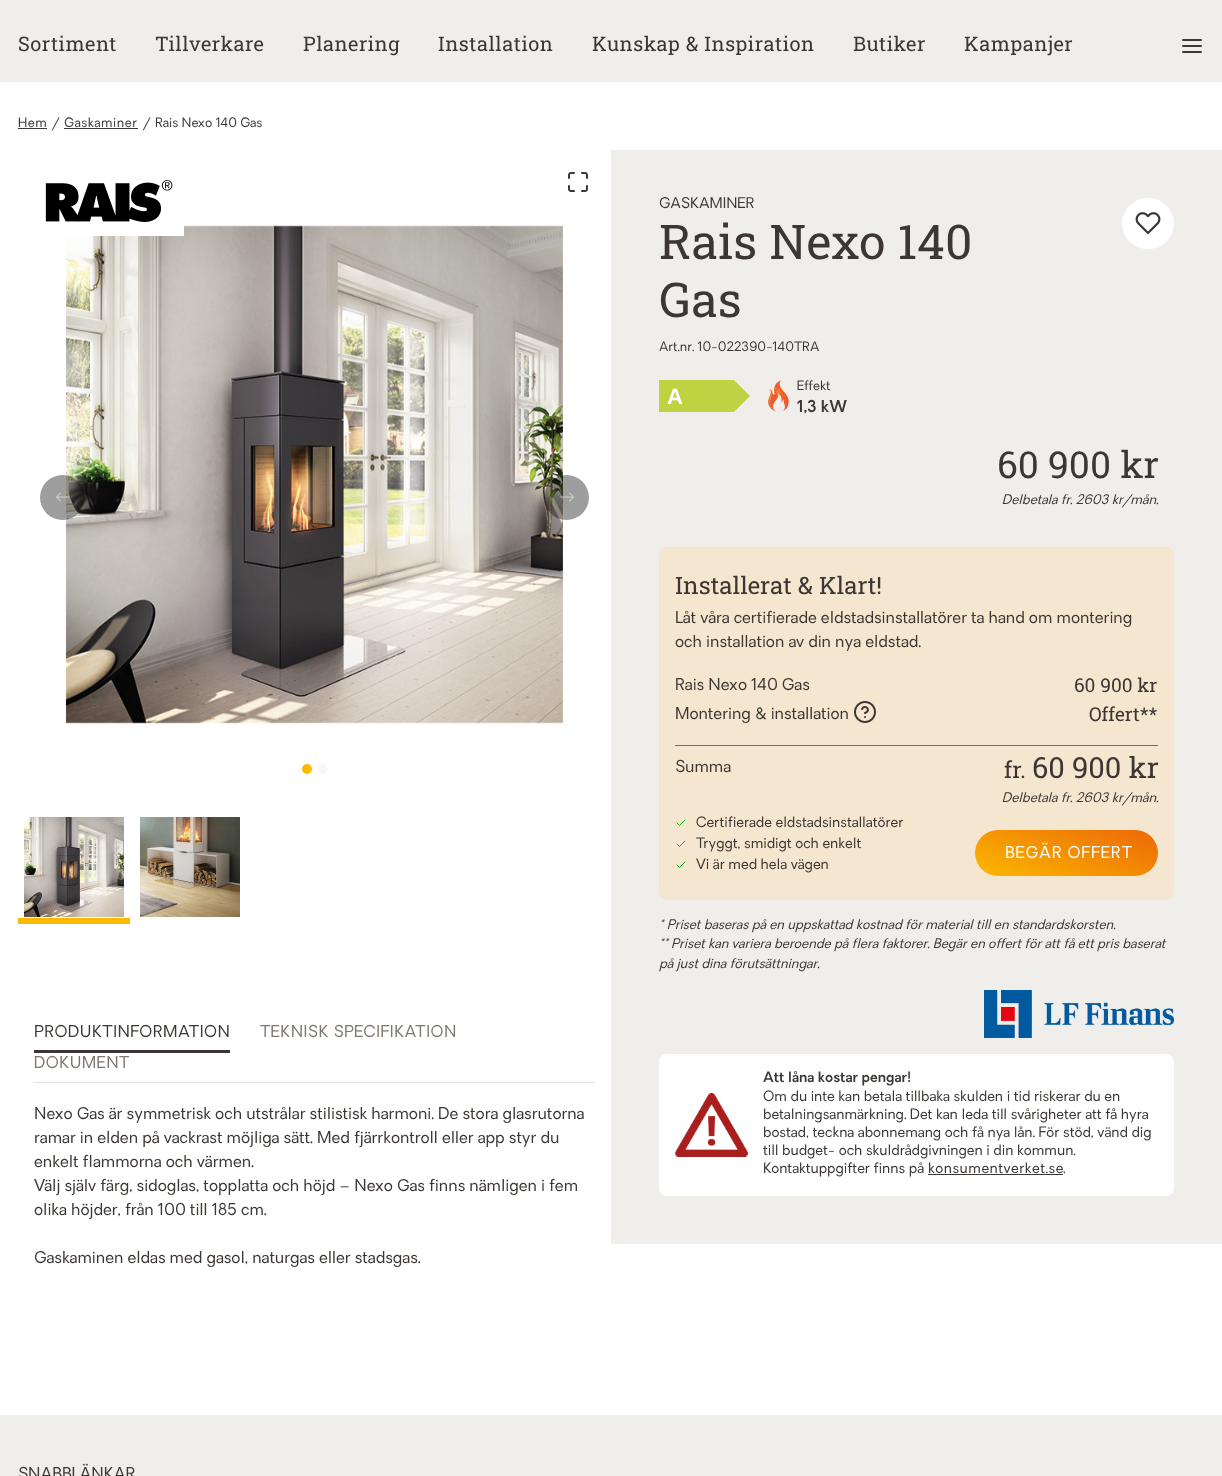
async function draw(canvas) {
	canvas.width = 1222;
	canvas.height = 1476;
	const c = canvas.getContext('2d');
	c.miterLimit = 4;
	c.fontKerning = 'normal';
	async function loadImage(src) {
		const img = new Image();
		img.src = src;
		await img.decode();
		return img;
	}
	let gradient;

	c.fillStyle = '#fff';
	c.fillRect(0, 0, 1222, 1476);
	c.fillStyle = '#f0eeeb';
	c.fillRect(0, 0, 1222, 82);
	c.letterSpacing = '0.5px';
	c.font = '20px Roboto Slab';
	c.fillStyle = '#3c3734';
	for (const [text, x, y] of [
		['Sortiment', 18, 51],
		['Tillverkare', 155, 51],
		['Planering', 303, 51],
		['Installation', 438, 51],
		['Kunskap & Inspiration', 592, 51],
		['Butiker', 853, 51],
		['Kampanjer', 964, 51],
	]) {
		c.fillText(text, x, y);
	}
	c.beginPath();
	c.moveTo(1183, 46);
	c.lineTo(1201, 46);
	c.moveTo(1183, 40);
	c.lineTo(1201, 40);
	c.moveTo(1183, 52);
	c.lineTo(1201, 52);
	c.strokeStyle = '#3c3734';
	c.lineWidth = 2;
	c.lineCap = 'round';
	c.lineJoin = 'round';
	c.stroke();
	c.font = '12.75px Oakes';
	c.fillText('Hem', 18, 127);
	c.fillRect(18, 128, 29, 1);
	c.letterSpacing = '0px';
	c.fillText('/', 52, 127);
	c.letterSpacing = '0.5px';
	c.fillText('Gaskaminer', 64, 127);
	c.fillRect(64, 128, 74, 1);
	c.letterSpacing = '0px';
	c.fillText('/', 143, 127);
	c.fillText('Rais Nexo 140 Gas', 155, 127);
	c.drawImage(await loadImage('img3.png'), 65, 225, 498, 499);
	c.drawImage(await loadImage('img1.png'), 45, 180, 139, 56);
	c.drawImage(await loadImage('img2.png'), 568, 172, 20, 20);
	c.fillStyle = '#00000061';
	c.beginPath();
	c.arc(62.5, 497.5, 22.5, 0, 2 * Math.PI);
	c.fill();
	c.drawImage(await loadImage('img4.png'), 56, 492, 14, 10);
	c.beginPath();
	c.arc(566.5, 497.5, 22.5, 0, 2 * Math.PI);
	c.fill();
	c.drawImage(await loadImage('img5.png'), 560, 492, 14, 10);
	c.fillStyle = '#fbb900';
	c.beginPath();
	c.arc(307, 769, 5, 0, 2 * Math.PI);
	c.fill();
	c.fillStyle = '#f8f7f5';
	c.beginPath();
	c.arc(323, 769, 5, 0, 2 * Math.PI);
	c.fill();
	c.fillStyle = '#fbb900';
	c.fillRect(18, 918, 112, 6);
	c.drawImage(await loadImage('img6.png'), 24, 817, 100, 100);
	c.drawImage(await loadImage('img7.png'), 140, 817, 100, 100);
	c.fillStyle = '#dee2e6';
	c.fillRect(34, 1082, 561, 1);
	c.fillStyle = '#3c3734';
	c.fillRect(34, 1050, 196, 3);
	c.letterSpacing = '0.5px';
	c.font = '16px Oakes';
	c.fillText('PRODUKTINFORMATION', 34, 1037);
	c.fillStyle = '#80766f';
	c.fillText('TEKNISK SPECIFIKATION', 260, 1037);
	c.fillText('DOKUMENT', 34, 1068);
	c.letterSpacing = '0px';
	c.fillStyle = '#3c3734';
	for (const [text, x, y] of [
		['Nexo Gas är symmetrisk och utstrålar stilistisk harmoni. De stora glasrutorna', 34, 1119],
		['ramar in elden på vackrast möjliga sätt. Med fjärrkontroll eller app styr du', 34, 1143],
		['enkelt flammorna och värmen.', 34, 1167],
		['Välj själv färg, sidoglas, topplatta och höjd – Nexo Gas finns nämligen i fem', 34, 1191],
		['olika höjder, från 100 till 185 cm.', 34, 1215],
		['Gaskaminen eldas med gasol, naturgas eller stadsgas.', 34, 1263],
	]) {
		c.fillText(text, x, y);
	}
	c.fillStyle = '#f0eeeb';
	c.fillRect(611, 150, 611, 1094);
	c.font = '14.5px Oakes';
	c.fillStyle = '#3c3734';
	c.fillText('GASKAMINER', 659, 208);
	c.fillStyle = '#fff';
	c.beginPath();
	c.roundRect(1122, 198, 52, 51, 25.5);
	c.fill();
	c.drawImage(await loadImage('img8.png'), 1135, 212, 26, 23);
	c.font = '48px Roboto Slab';
	c.fillStyle = '#3c3734';
	c.fillText('Rais Nexo 140', 659, 259);
	c.fillText('Gas', 659, 317);
	c.font = '12.75px Oakes';
	c.fillText('Art.nr. 10-022390-140TRA', 659, 351);
	c.fillStyle = '#bdd342';
	c.fillRect(659, 380, 75, 32);
	c.font = 'bold 22px Liberation Sans';
	c.fillStyle = '#fff';
	c.fillText('A', 667, 404);
	c.fillStyle = '#bdd342';
	c.beginPath();
	c.moveTo(734, 412);
	c.lineTo(734, 380);
	c.lineTo(750, 396);
	c.closePath();
	c.fill();
	gradient = c.createRadialGradient(769, 142.91, 0, 769, 142.91, 4);
	gradient.addColorStop(0, '#f0a422');
	gradient.addColorStop(1, '#f1592e');
	c.fillStyle = gradient;
	c.beginPath();
	c.moveTo(770.5, 393.5);
	c.lineTo(768.5, 399);
	c.bezierCurveTo(767, 404.5, 770.5, 410, 776, 411.5);
	c.bezierCurveTo(771, 409.5, 769, 404, 770.5, 398.5);
	c.bezierCurveTo(771, 396, 773.5, 394, 772, 391);
	c.bezierCurveTo(771.5, 390, 770.5, 389.5, 769, 389);
	c.bezierCurveTo(770.5, 390, 771, 392, 770.5, 393.5);
	c.closePath();
	c.save();
	c.clip();
	c.scale(1, 11 / 4);
	c.fillRect(0, 0, 1222, 537);
	c.restore();
	gradient = c.createRadialGradient(779, 145.08, 0, 779, 145.08, 3.6);
	gradient.addColorStop(0, '#f0a422');
	gradient.addColorStop(0.45, '#f08327');
	gradient.addColorStop(1, '#f1592e');
	c.fillStyle = gradient;
	c.beginPath();
	c.moveTo(775.5, 385);
	c.bezierCurveTo(774.5, 388, 776, 391, 777.5, 394);
	c.bezierCurveTo(781, 398.5, 771, 402, 773.5, 408.5);
	c.bezierCurveTo(774, 410, 775, 411, 776.5, 411.5);
	c.bezierCurveTo(775, 411.5, 773, 409.5, 772, 408.5);
	c.bezierCurveTo(770, 405.5, 769.5, 402, 770.5, 398.5);
	c.bezierCurveTo(771.5, 395.5, 774, 393, 771, 390.5);
	c.bezierCurveTo(772.5, 391.5, 772.5, 394, 773.5, 394.5);
	c.bezierCurveTo(775.5, 396, 774, 390, 774, 390);
	c.bezierCurveTo(774, 388.5, 774.5, 386.5, 775.5, 385);
	c.closePath();
	c.save();
	c.clip();
	c.scale(1, 10 / 3.6);
	c.fillRect(0, 0, 1222, 532);
	c.restore();
	gradient = c.createRadialGradient(778, 180.45, 0, 778, 180.45, 5);
	gradient.addColorStop(0, '#f0a422');
	gradient.addColorStop(1, '#f1592e');
	c.fillStyle = gradient;
	c.beginPath();
	c.moveTo(775.5, 384.5);
	c.bezierCurveTo(777, 382.5, 779, 381, 781, 380.5);
	c.bezierCurveTo(774.5, 389, 793, 393.5, 788, 405.5);
	c.bezierCurveTo(787.5, 408, 785.5, 410, 783, 411);
	c.bezierCurveTo(788, 406.5, 781.5, 401.5, 784.5, 399);
	c.lineTo(783, 400);
	c.bezierCurveTo(782, 401, 782, 403, 781.5, 402);
	c.lineTo(781.5, 399.5);
	c.bezierCurveTo(781.5, 397, 780, 394.5, 777.5, 394);
	c.bezierCurveTo(776, 391, 774, 387.5, 775.5, 384.5);
	c.closePath();
	c.save();
	c.clip();
	c.scale(1, 11 / 5);
	c.fillRect(0, 0, 1222, 671);
	c.restore();
	c.font = '12.75px Oakes';
	c.fillStyle = '#3c3734';
	c.fillText('Effekt', 797, 390);
	c.font = '600 16px Oakes';
	c.fillText('1,3 kW', 797, 412);
	c.font = '37px Roboto Slab';
	c.fillText('60 900 kr', 997, 478);
	c.font = 'italic 13px Oakes';
	c.fillText('Delbetala fr. 2603 kr/mån.', 1002, 504);
	c.fillStyle = '#f5e6cf';
	c.beginPath();
	c.roundRect(659, 547, 515, 353, 8);
	c.fill();
	c.font = '24px Roboto Slab';
	c.fillStyle = '#3c3734';
	c.fillText('Installerat & Klart!', 675, 594);
	c.font = '16px Oakes';
	for (const [text, x, y] of [
		['Låt våra certifierade eldstadsinstallatörer ta hand om montering', 675, 623],
		['och installation av din nya eldstad.', 675, 647],
		['Rais Nexo 140 Gas', 675, 690],
	]) {
		c.fillText(text, x, y);
	}
	c.font = '19px Roboto Slab';
	c.fillText('60 900 kr', 1074, 692);
	c.font = '16px Oakes';
	c.fillText('Montering & installation', 675, 719);
	c.drawImage(await loadImage('img9.png'), 854, 701, 22, 22);
	c.font = '19px Roboto Slab';
	c.fillText('Offert**', 1089, 721);
	c.fillStyle = '#746c63';
	c.fillRect(675, 745, 483, 1);
	c.font = '16px Oakes';
	c.fillStyle = '#3c3734';
	c.fillText('Summa', 675, 772);
	c.font = '23px Roboto Slab';
	c.fillText('fr.', 1004, 778);
	c.font = '29px Roboto Slab';
	c.fillText('60 900 kr', 1032, 778);
	c.font = 'italic 13px Oakes';
	c.fillText('Delbetala fr. 2603 kr/mån.', 1002, 802);
	c.beginPath();
	c.moveTo(685, 820);
	c.lineTo(679.5, 825.5);
	c.lineTo(677, 823);
	c.moveTo(685, 841);
	c.lineTo(679.5, 846.5);
	c.lineTo(677, 844);
	c.moveTo(685, 862);
	c.lineTo(679.5, 867.5);
	c.lineTo(677, 865);
	c.strokeStyle = '#18b525';
	c.lineWidth = 1;
	c.stroke();
	c.font = '14px Oakes';
	for (const [text, x, y] of [
		['Certifierade eldstadsinstallatörer', 696, 827],
		['Tryggt, smidigt och enkelt', 696, 848],
		['Vi är med hela vägen', 696, 869],
	]) {
		c.fillText(text, x, y);
	}
	gradient = c.createLinearGradient(1047, 904, 1086, 802);
	gradient.addColorStop(0, '#fbb900');
	gradient.addColorStop(1, '#ec6707');
	c.fillStyle = gradient;
	c.beginPath();
	c.roundRect(975, 830, 183, 46, 23);
	c.fill();
	c.letterSpacing = '1px';
	c.font = '16px Oakes';
	c.fillStyle = '#fff';
	c.fillText('BEGÄR OFFERT', 1005, 858);
	c.letterSpacing = '0px';
	c.font = 'italic 13px Oakes';
	c.fillStyle = '#3c3734';
	for (const [text, x, y] of [
		['* Priset baseras på en uppskattad kostnad för material till en standardskorsten.', 659, 929],
		['** Priset kan variera beroende på flera faktorer. Begär en offert för att få ett pris baserat', 659, 948],
		['på just dina förutsättningar.', 659, 968],
	]) {
		c.fillText(text, x, y);
	}
	c.drawImage(await loadImage('img10.png'), 984, 990, 190, 48);
	c.fillStyle = '#fff';
	c.beginPath();
	c.roundRect(659, 1054, 515, 142, 8);
	c.fill();
	c.drawImage(await loadImage('img11.png'), 675, 1093, 73, 64);
	c.font = '600 14px Oakes';
	c.fillStyle = '#3c3734';
	c.fillText('Att låna kostar pengar!', 763, 1082);
	c.font = '14px Oakes';
	for (const [text, x, y] of [
		['Om du inte kan betala tillbaka skulden i tid riskerar du en', 763, 1101],
		['betalningsanmärkning. Det kan leda till svårigheter att få hyra', 763, 1119],
		['bostad, teckna abonnemang och få nya lån. För stöd, vänd dig', 763, 1137],
		['till budget- och skuldrådgivningen i din kommun.', 763, 1155],
		['Kontaktuppgifter finns på', 763, 1173],
	]) {
		c.fillText(text, x, y);
	}
	c.letterSpacing = '0.5px';
	c.fillText('konsumentverket.se', 928, 1173);
	c.fillRect(928, 1174, 135, 1);
	c.letterSpacing = '0px';
	c.fillText('.', 1063, 1173);
	c.fillStyle = '#f0eeeb';
	c.fillRect(0, 1415, 1222, 61);
	c.font = '16px Oakes';
	c.fillStyle = '#3c3734';
	c.fillText('SNABBLÄNKAR', 18, 1479);
}

draw(document.querySelector('canvas'));
